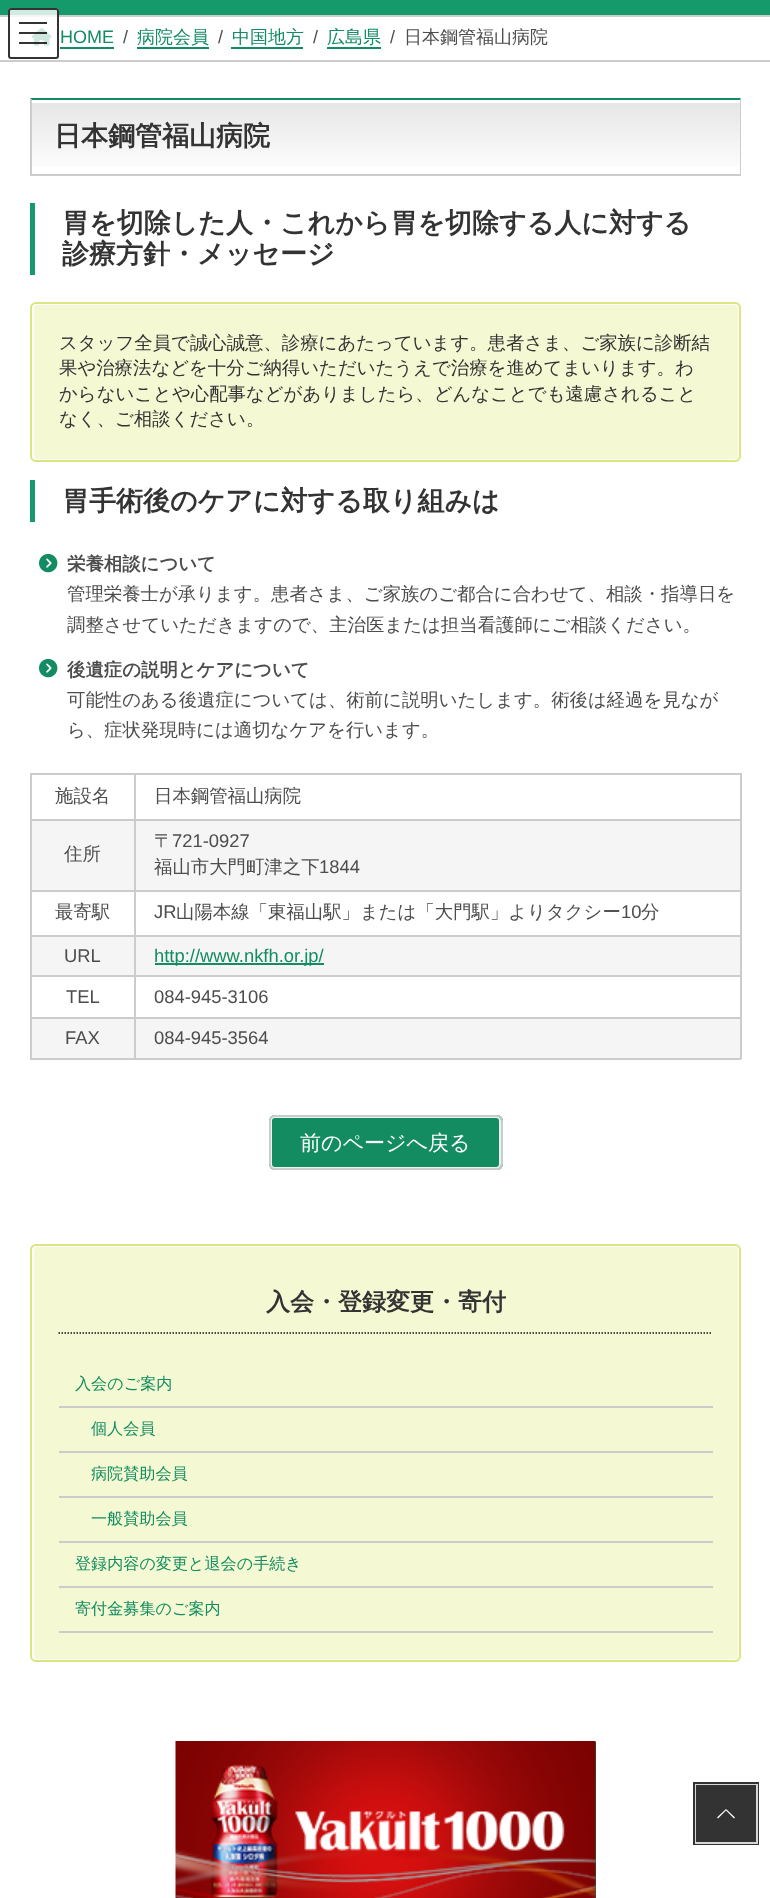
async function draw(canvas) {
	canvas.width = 770;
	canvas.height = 1898;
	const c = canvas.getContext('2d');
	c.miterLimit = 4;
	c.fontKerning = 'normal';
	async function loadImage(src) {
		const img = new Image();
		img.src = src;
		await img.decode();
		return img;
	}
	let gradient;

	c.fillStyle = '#fff';
	c.fillRect(0, 0, 770, 1898);
	c.fillStyle = '#159a6b';
	c.fillRect(0, 0, 770, 15);
	c.fillStyle = '#ccc';
	c.fillRect(0, 15, 770, 2);
	c.drawImage(await loadImage('img1.png'), 31, 27, 21, 19);
	c.fillStyle = '#ffffffcc';
	c.beginPath();
	c.roundRect(8, 8, 51, 51, 3);
	c.fill();
	for (const [x, y, w, h, color] of [
		[19, 22, 28, 2, '#333'],
		[19, 32, 28, 2, '#000000cc'],
		[19, 42, 28, 2, '#000000cc'],
	]) {
		c.fillStyle = color;
		c.fillRect(x, y, w, h);
	}
	c.beginPath();
	c.roundRect(9, 9, 49, 49, 2);
	c.strokeStyle = '#333';
	c.lineWidth = 2;
	c.stroke();
	c.fillStyle = '#ccc';
	c.fillRect(0, 60, 770, 2);
	c.font = '18px Liberation Sans';
	c.fillStyle = '#138c61';
	c.fillText('HOME', 60, 43);
	c.fillRect(60, 47, 54, 2);
	c.fillStyle = '#4d4d4d';
	c.fillText('/', 123, 43);
	c.font = '500 18px WenQuanYi Zen Hei';
	c.fillStyle = '#138c61';
	c.fillText('病院会員', 137, 43);
	c.fillRect(137, 47, 72, 2);
	c.font = '18px Liberation Sans';
	c.fillStyle = '#4d4d4d';
	c.fillText('/', 218, 43);
	c.font = '500 18px WenQuanYi Zen Hei';
	c.fillStyle = '#138c61';
	c.fillText('中国地方', 232, 43);
	c.fillRect(231, 47, 72, 2);
	c.font = '18px Liberation Sans';
	c.fillStyle = '#4d4d4d';
	c.fillText('/', 313, 43);
	c.font = '500 18px WenQuanYi Zen Hei';
	c.fillStyle = '#138c61';
	c.fillText('広島県', 327, 43);
	c.fillRect(327, 47, 54, 2);
	c.font = '18px Liberation Sans';
	c.fillStyle = '#4d4d4d';
	c.fillText('/', 390, 43);
	c.font = '500 18px WenQuanYi Zen Hei';
	c.fillText('日本鋼管福山病院', 404, 43);
	gradient = c.createLinearGradient(386, 100, 386, 174);
	gradient.addColorStop(0, '#e5e5e5');
	gradient.addColorStop(1, '#fff');
	c.fillStyle = gradient;
	c.fillRect(32, 103, 708, 64);
	c.fillStyle = '#138c61';
	c.beginPath();
	c.moveTo(30, 98);
	c.lineTo(741, 98);
	c.lineTo(740, 100);
	c.lineTo(32, 100);
	c.closePath();
	c.fill();
	c.fillStyle = '#ccc';
	c.beginPath();
	c.moveTo(741, 98);
	c.lineTo(741, 176);
	c.lineTo(740, 174);
	c.lineTo(740, 100);
	c.closePath();
	c.fill();
	c.fillRect(30, 174, 711, 2);
	c.beginPath();
	c.moveTo(30, 176);
	c.lineTo(30, 98);
	c.lineTo(32, 100);
	c.lineTo(32, 174);
	c.closePath();
	c.fill();
	c.font = 'bold 27px WenQuanYi Zen Hei';
	c.fillStyle = '#333';
	c.fillText('日本鋼管福山病院', 54, 145);
	c.fillStyle = '#159a6b';
	c.fillRect(30, 203, 5, 72);
	c.fillStyle = '#333';
	c.fillText('胃を切除した人・これから胃を切除する人に対する', 62, 232);
	c.fillText('診療方針・メッセージ', 62, 263);
	c.fillStyle = '#f5f9d3';
	c.beginPath();
	c.roundRect(30, 302, 711, 160, 6);
	c.fill();
	c.beginPath();
	c.roundRect(33, 304, 706, 156, 4);
	c.strokeStyle = '#fff';
	c.stroke();
	c.beginPath();
	c.roundRect(31, 303, 709, 158, 5);
	c.strokeStyle = '#dbe581';
	c.stroke();
	c.font = '500 18.4px WenQuanYi Zen Hei';
	c.fillStyle = '#333';
	for (const [text, x, y] of [
		['スタッフ全員で誠心誠意、診療にあたっています。患者さま、ご家族に診断結', 59, 349],
		['果や治療法などを十分ご納得いただいたうえで治療を進めてまいります。わ', 59, 374],
		['からないことや心配事などがありましたら、どんなことでも遠慮されること', 59, 400],
		['なく、ご相談ください。', 59, 425],
	]) {
		c.fillText(text, x, y);
	}
	c.fillStyle = '#159a6b';
	c.fillRect(30, 480, 5, 42);
	c.font = 'bold 27px WenQuanYi Zen Hei';
	c.fillStyle = '#333';
	c.fillText('胃手術後のケアに対する取り組みは', 62, 510);
	c.drawImage(await loadImage('img2.png'), 39, 553, 19, 20);
	c.font = 'bold 18.4px WenQuanYi Zen Hei';
	c.fillStyle = '#4d4d4d';
	c.fillText('栄養相談について', 67, 570);
	c.font = '500 18.4px WenQuanYi Zen Hei';
	c.fillText('管理栄養士が承ります。患者さま、ご家族のご都合に合わせて、相談・指導日を', 67, 600);
	c.fillText('調整させていただきますので、主治医または担当看護師にご相談ください。', 67, 631);
	c.drawImage(await loadImage('img2.png'), 39, 658, 19, 20);
	c.font = 'bold 18.4px WenQuanYi Zen Hei';
	c.fillText('後遺症の説明とケアについて', 67, 676);
	c.font = '500 18.4px WenQuanYi Zen Hei';
	c.fillText('可能性のある後遺症については、術前に説明いたします。術後は経過を見なが', 67, 706);
	c.fillText('ら、症状発現時には適切なケアを行います。', 67, 736);
	for (const [x, y, w, h, color] of [
		[30, 773, 711, 2, '#ccc'],
		[740, 773, 2, 286, '#ccc'],
		[30, 1058, 711, 2, '#ccc'],
		[30, 773, 2, 286, '#ccc'],
	]) {
		c.fillStyle = color;
		c.fillRect(x, y, w, h);
	}
	c.fillStyle = '#4d4d4d';
	c.fillText('施設名', 55, 802);
	for (const [x, y, w, h, color] of [
		[134, 819, 607, 2, '#ccc'],
		[32, 821, 708, 69, '#f5f5f5'],
		[134, 890, 607, 2, '#ccc'],
		[134, 935, 607, 2, '#ccc'],
		[32, 937, 708, 38, '#f5f5f5'],
		[134, 975, 607, 2, '#ccc'],
		[134, 1017, 607, 2, '#ccc'],
		[32, 1019, 708, 39, '#f5f5f5'],
		[134, 1017, 2, 42, '#ccc'],
		[30, 1017, 105, 2, '#ccc'],
		[134, 975, 2, 44, '#ccc'],
		[30, 975, 105, 2, '#ccc'],
		[134, 935, 2, 42, '#ccc'],
		[30, 935, 105, 2, '#ccc'],
		[134, 890, 2, 46, '#ccc'],
		[30, 890, 105, 2, '#ccc'],
		[134, 819, 2, 72, '#ccc'],
		[30, 819, 105, 2, '#ccc'],
		[134, 773, 2, 48, '#ccc'],
	]) {
		c.fillStyle = color;
		c.fillRect(x, y, w, h);
	}
	c.fillStyle = '#4d4d4d';
	for (const [text, x, y] of [
		['日本鋼管福山病院', 154, 802],
		['住所', 64, 860],
		['〒', 154, 847],
	]) {
		c.fillText(text, x, y);
	}
	c.font = '18.4px Liberation Sans';
	c.fillText('721-0927', 172, 847);
	c.font = '500 18.4px WenQuanYi Zen Hei';
	c.fillText('福山市大門町津之下', 154, 873);
	c.font = '18.4px Liberation Sans';
	c.fillText('1844', 319, 873);
	c.font = '500 18.4px WenQuanYi Zen Hei';
	c.fillText('最寄駅', 55, 918);
	c.font = '18.4px Liberation Sans';
	c.fillText('JR', 154, 918);
	c.font = '500 18.4px WenQuanYi Zen Hei';
	c.fillText('山陽本線「東福山駅」または「大門駅」よりタクシー', 176, 918);
	c.font = '18.4px Liberation Sans';
	c.fillText('10', 621, 918);
	c.font = '500 18.4px WenQuanYi Zen Hei';
	c.fillText('分', 641, 918);
	c.font = '18.4px Liberation Sans';
	c.fillText('URL', 64, 962);
	c.fillStyle = '#138c61';
	c.fillRect(155, 963, 169, 2);
	c.fillText('http://www.nkfh.or.jp/', 154, 962);
	c.fillStyle = '#4d4d4d';
	for (const [text, x, y] of [
		['TEL', 66, 1003],
		['084-945-3106', 154, 1003],
		['FAX', 65, 1044],
		['084-945-3564', 154, 1044],
	]) {
		c.fillText(text, x, y);
	}
	c.fillStyle = '#138c61';
	c.beginPath();
	c.roundRect(269, 1115, 234, 55, 6);
	c.fill();
	c.beginPath();
	c.roundRect(271, 1117, 229, 51, 4);
	c.strokeStyle = '#e7f4ef';
	c.stroke();
	c.beginPath();
	c.roundRect(270, 1116, 232, 53, 5);
	c.strokeStyle = '#ccc';
	c.stroke();
	c.font = '500 21px WenQuanYi Zen Hei';
	c.fillStyle = '#fff';
	c.fillText('前のページへ戻る', 300, 1150);
	c.fillStyle = '#f5f9d3';
	c.beginPath();
	c.roundRect(30, 1244, 711, 418, 6);
	c.fill();
	c.beginPath();
	c.roundRect(33, 1246, 706, 414, 4);
	c.strokeStyle = '#fff';
	c.stroke();
	c.beginPath();
	c.roundRect(31, 1245, 709, 416, 5);
	c.strokeStyle = '#dbe581';
	c.stroke();
	c.beginPath();
	c.moveTo(58.5, 1333);
	c.lineTo(712.5, 1333);
	c.strokeStyle = '#111';
	c.lineWidth = 1.5;
	c.setLineDash([1.5, 1.5]);
	c.stroke();
	c.font = 'bold 24px WenQuanYi Zen Hei';
	c.fillStyle = '#333';
	c.fillText('入会・登録変更・寄付', 266, 1310);
	c.fillStyle = '#ccc';
	c.fillRect(59, 1406, 654, 2);
	c.font = '500 16.1px WenQuanYi Zen Hei';
	c.fillStyle = '#138c61';
	c.fillText('入会のご案内', 75, 1389);
	c.fillStyle = '#ccc';
	c.fillRect(59, 1451, 654, 2);
	c.fillStyle = '#138c61';
	c.fillText('個人会員', 91, 1434);
	c.fillStyle = '#ccc';
	c.fillRect(59, 1496, 654, 2);
	c.fillStyle = '#138c61';
	c.fillText('病院賛助会員', 91, 1479);
	c.fillStyle = '#ccc';
	c.fillRect(59, 1541, 654, 2);
	c.fillStyle = '#138c61';
	c.fillText('一般賛助会員', 91, 1524);
	c.fillStyle = '#ccc';
	c.fillRect(59, 1586, 654, 2);
	c.fillStyle = '#138c61';
	c.fillText('登録内容の変更と退会の手続き', 75, 1569);
	c.fillStyle = '#ccc';
	c.fillRect(59, 1631, 654, 2);
	c.fillStyle = '#138c61';
	c.fillText('寄付金募集のご案内', 75, 1614);
	c.fillStyle = '#0f704e';
	c.fillRect(595, 1742, 1, 156);
	c.drawImage(await loadImage('img3.png'), 175, 1741, 421, 157);
	c.strokeStyle = '#333';
	c.lineWidth = 3;
	c.setLineDash([]);
	c.strokeRect(694.5, 1783.5, 63, 60);
	c.strokeStyle = '#ffffffcc';
	c.lineWidth = 2;
	c.strokeRect(696, 1785, 61, 58);
	c.fillStyle = '#333';
	c.fillRect(696, 1785, 60, 57);
	c.fillStyle = '#fff';
	c.beginPath();
	c.moveTo(735, 1817.5);
	c.lineTo(734, 1818.5);
	c.lineTo(726, 1810.5);
	c.lineTo(718, 1818.5);
	c.lineTo(717, 1817.5);
	c.lineTo(726, 1809);
	c.closePath();
	c.fill();
}

draw(document.querySelector('canvas'));
